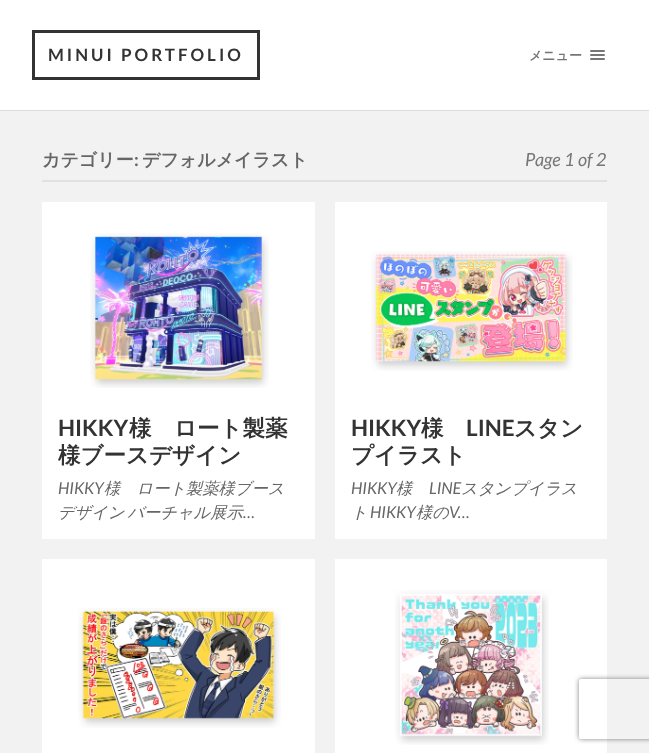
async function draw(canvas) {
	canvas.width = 649;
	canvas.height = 753;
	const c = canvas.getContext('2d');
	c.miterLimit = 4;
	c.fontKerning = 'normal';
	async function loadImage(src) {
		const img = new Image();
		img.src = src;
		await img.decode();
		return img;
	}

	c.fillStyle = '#f2f2f2';
	c.fillRect(0, 0, 649, 753);
	c.fillStyle = '#fff';
	c.fillRect(0, 0, 649, 110);
	c.fillStyle = '#ddd';
	c.fillRect(0, 110, 649, 1);
	c.strokeStyle = '#333';
	c.lineWidth = 3;
	c.strokeRect(33.5, 31.5, 225, 47);
	c.letterSpacing = '3px';
	c.font = 'bold 17px Lato';
	c.fillStyle = '#333';
	c.fillText('MINUI PORTFOLIO', 48, 61);
	c.letterSpacing = '0px';
	c.font = 'bold 13px WenQuanYi Zen Hei';
	c.fillStyle = '#767676';
	c.fillText('メニュー', 529, 60);
	c.beginPath();
	c.roundRect(590, 50, 15, 2, 1);
	c.fill();
	c.beginPath();
	c.roundRect(590, 54, 15, 2, 1);
	c.fill();
	c.beginPath();
	c.roundRect(590, 58, 15, 2, 1);
	c.fill();
	c.fillStyle = '#e1e1e1';
	c.fillRect(42, 180, 565, 2);
	c.font = 'bold 18px WenQuanYi Zen Hei';
	c.fillStyle = '#666';
	c.fillText('カテゴリー', 42, 166);
	c.font = 'bold 18px Lato';
	c.fillText(':', 134, 166);
	c.font = 'bold 18px WenQuanYi Zen Hei';
	c.fillText('デフォルメイラスト', 142, 166);
	c.font = 'italic 18px Lato';
	c.fillStyle = '#767676';
	c.fillText('Page 1 of 2', 525, 166);
	c.fillStyle = '#fff';
	c.fillRect(42, 202, 273, 337);
	c.drawImage(await loadImage('img1.png'), 90, 233, 179, 155);
	c.font = 'bold 22.5px Lato';
	c.fillStyle = '#333';
	c.fillText('HIKKY', 58, 436);
	c.font = 'bold 22.5px WenQuanYi Zen Hei';
	c.fillText('様　ロート製薬', 129, 436);
	c.fillText('様ブースデザイン', 58, 463);
	c.font = 'italic 16.25px Lato';
	c.fillStyle = '#666';
	c.fillText('HIKKY', 58, 494);
	c.font = 'italic 500 16.25px WenQuanYi Zen Hei';
	c.fillText('様　ロート製薬様ブース', 104, 494);
	c.wordSpacing = '-2px';
	c.fillText('デザイン バーチャル展示', 58, 518);
	c.wordSpacing = '0px';
	c.font = 'italic 16.25px Lato';
	c.fillText('…', 243, 518);
	c.fillStyle = '#fff';
	c.fillRect(335, 202, 272, 337);
	c.drawImage(await loadImage('img2.png'), 371, 251, 202, 120);
	c.font = 'bold 22.5px Lato';
	c.fillStyle = '#333';
	c.fillText('HIKKY', 351, 436);
	c.font = 'bold 22.5px WenQuanYi Zen Hei';
	c.fillText('様', 421, 436);
	c.font = 'bold 22.5px Lato';
	c.fillText('LINE', 466, 436);
	c.font = 'bold 22.5px WenQuanYi Zen Hei';
	c.fillText('スタン', 514, 436);
	c.fillText('プイラスト', 351, 463);
	c.font = 'italic 16.25px Lato';
	c.fillStyle = '#666';
	c.fillText('HIKKY', 351, 494);
	c.font = 'italic 500 16.25px WenQuanYi Zen Hei';
	c.fillText('様', 396, 494);
	c.font = 'italic 16.25px Lato';
	c.fillText('LINE', 429, 494);
	c.font = 'italic 500 16.25px WenQuanYi Zen Hei';
	c.fillText('スタンプイラス', 461, 494);
	c.fillText('ト', 351, 518);
	c.font = 'italic 16.25px Lato';
	c.fillText('HIKKY', 370, 518);
	c.font = 'italic 500 16.25px WenQuanYi Zen Hei';
	c.fillText('様の', 416, 518);
	c.font = 'italic 16.25px Lato';
	c.fillText('V…', 449, 518);
	c.fillStyle = '#fff';
	c.fillRect(42, 559, 273, 194);
	c.drawImage(await loadImage('img3.png'), 78, 608, 203, 120);
	c.fillRect(335, 559, 272, 194);
	c.drawImage(await loadImage('img4.png'), 395, 590, 154, 155);
	c.save();
	c.beginPath();
	c.moveTo(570, 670);
	c.lineTo(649, 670);
	c.lineTo(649, 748);
	c.lineTo(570, 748);
	c.closePath();
	c.moveTo(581, 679);
	c.lineTo(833, 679);
	c.bezierCurveTo(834, 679, 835, 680, 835, 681);
	c.lineTo(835, 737);
	c.bezierCurveTo(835, 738, 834, 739, 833, 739);
	c.lineTo(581, 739);
	c.bezierCurveTo(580, 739, 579, 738, 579, 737);
	c.lineTo(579, 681);
	c.bezierCurveTo(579, 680, 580, 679, 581, 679);
	c.closePath();
	c.clip('evenodd');
	c.fillStyle = '#808080';
	c.filter = 'blur(2.5px)';
	c.beginPath();
	c.roundRect(579, 679, 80, 60, 2);
	c.fill();
	c.filter = 'none';
	c.restore();
}

draw(document.querySelector('canvas'));
